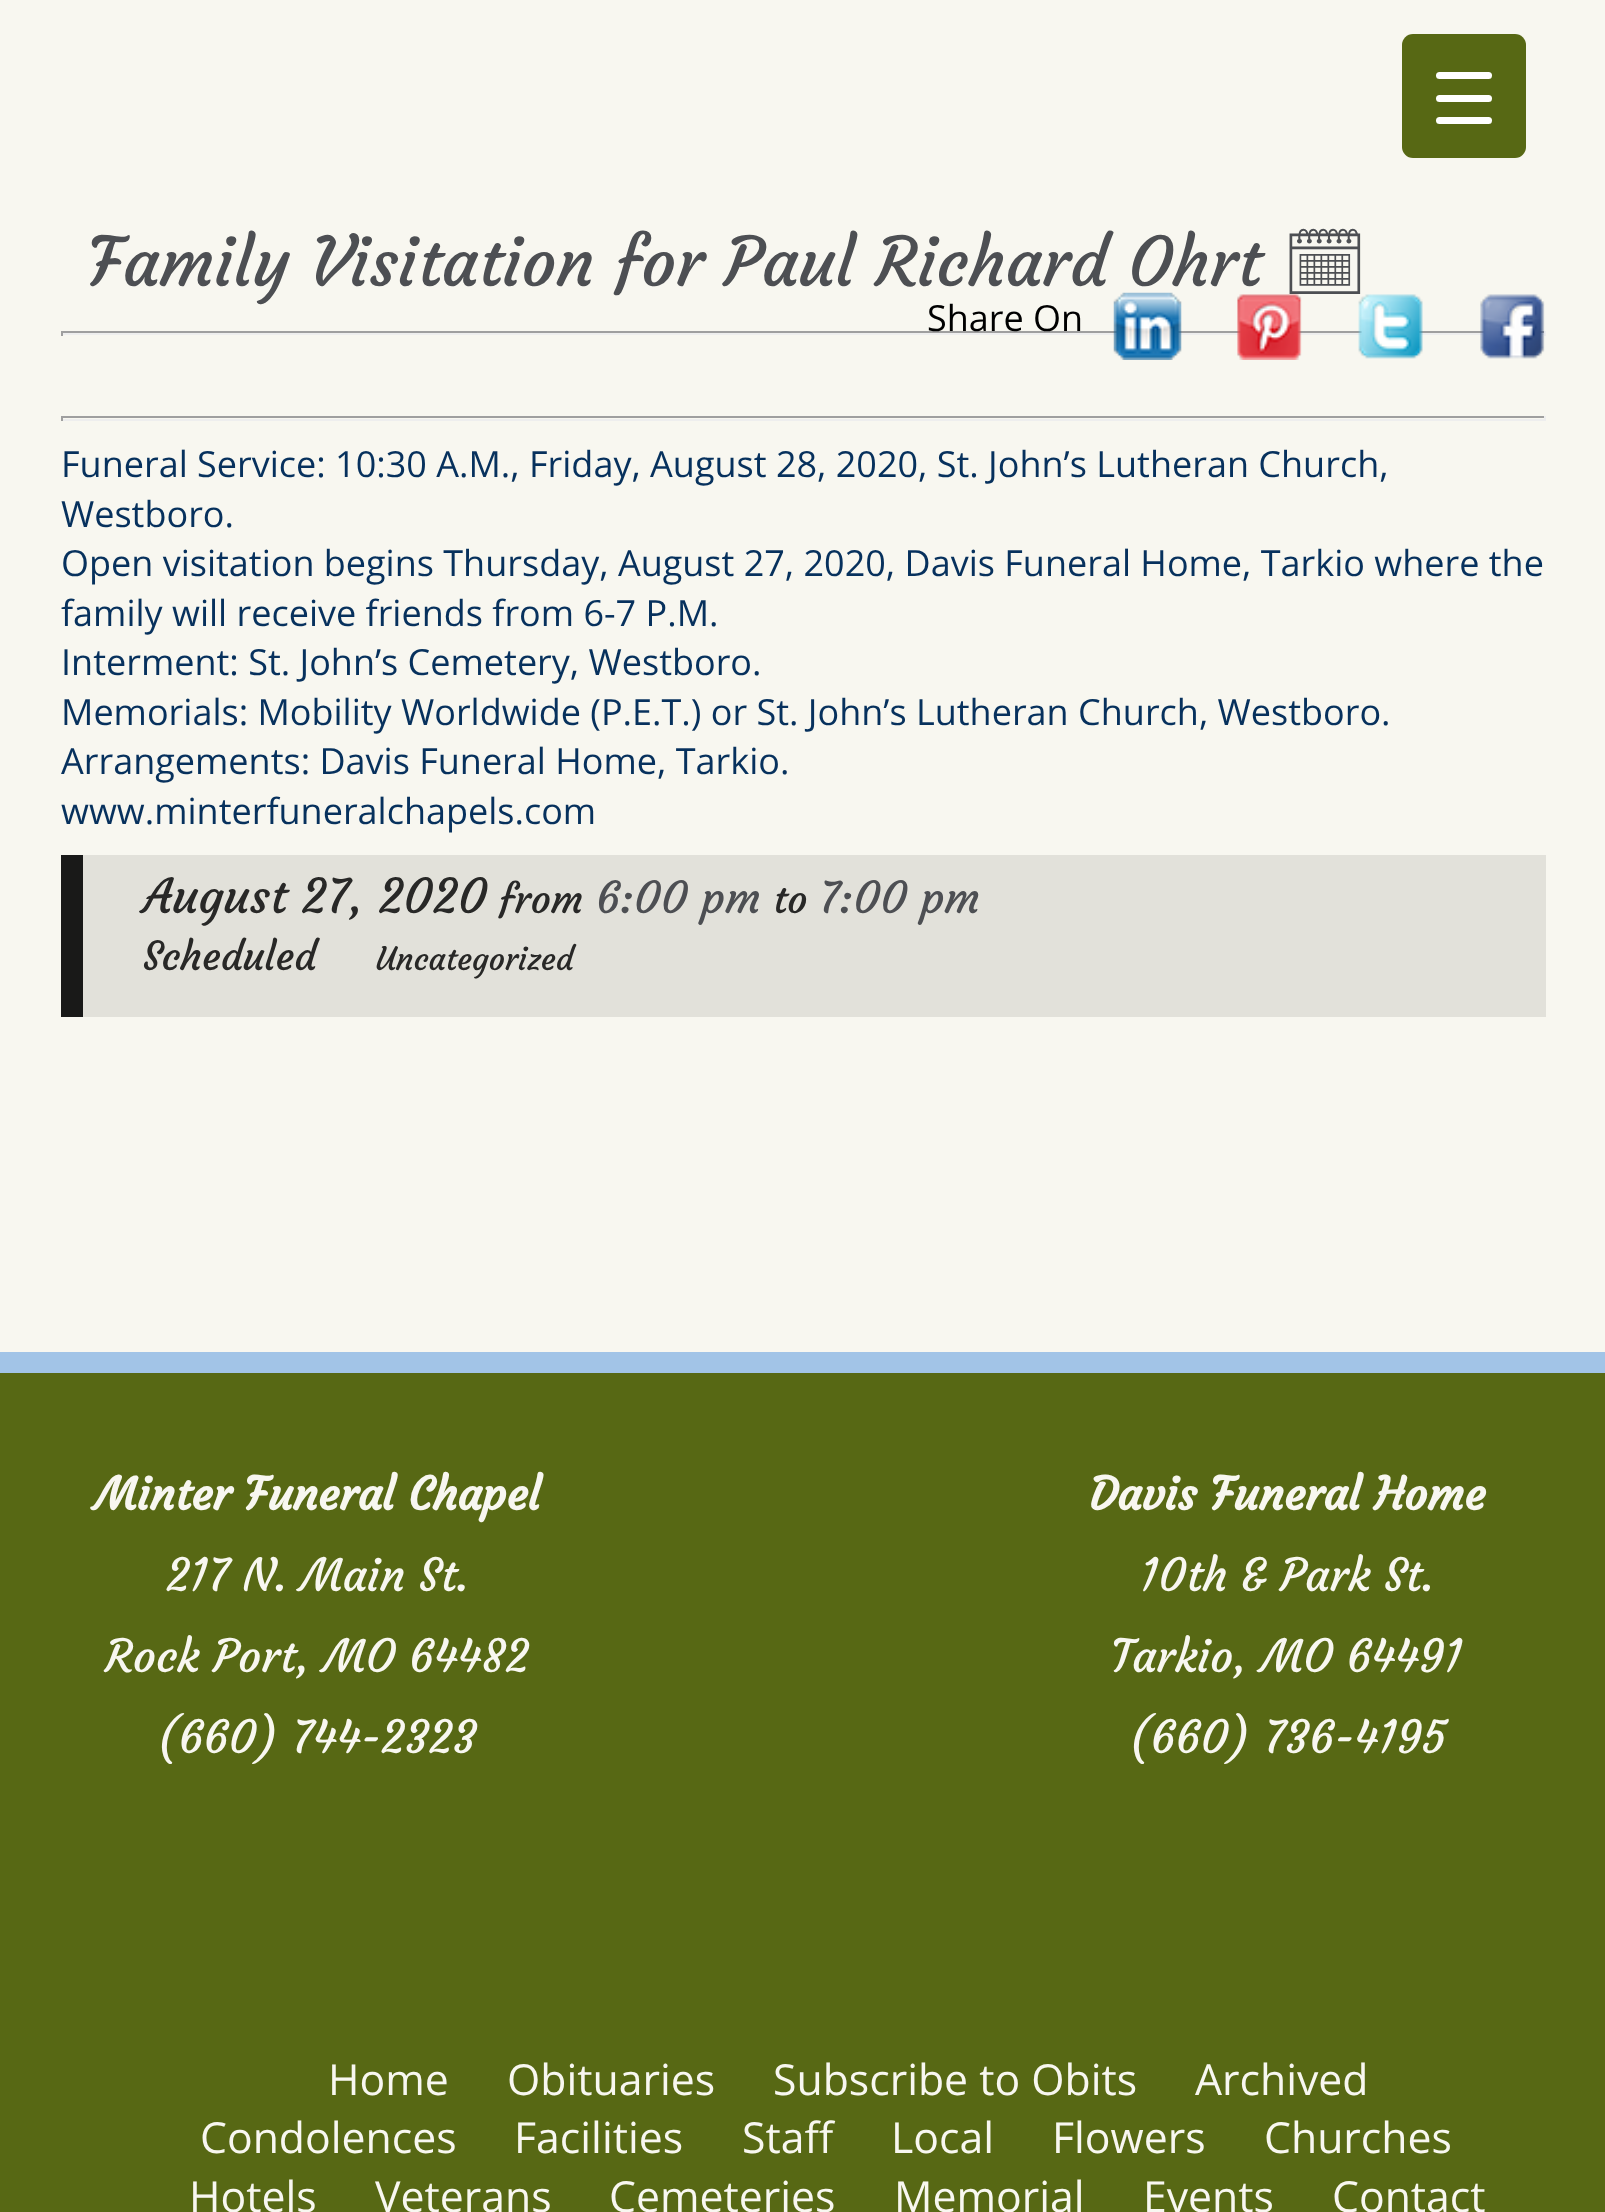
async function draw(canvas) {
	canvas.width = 1605;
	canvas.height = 2212;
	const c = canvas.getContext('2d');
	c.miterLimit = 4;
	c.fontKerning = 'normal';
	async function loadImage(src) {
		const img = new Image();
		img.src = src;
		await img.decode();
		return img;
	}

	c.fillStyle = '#f8f7f0';
	c.fillRect(0, 0, 1605, 2212);
	c.fillStyle = '#576814';
	c.beginPath();
	c.roundRect(1402, 34, 124, 124, 11);
	c.fill();
	c.fillStyle = '#fff';
	c.beginPath();
	c.roundRect(1436, 95, 56, 7, 3.5);
	c.fill();
	c.beginPath();
	c.roundRect(1436, 72, 56, 7, 3.5);
	c.fill();
	c.beginPath();
	c.roundRect(1436, 117, 56, 7, 3.5);
	c.fill();
	c.font = '67.5px Courgette';
	c.fillStyle = '#4d4f53';
	c.fillText('Family Visitation for Paul Richard Ohrt', 88, 286);
	c.font = '67.5px Noto Emoji';
	c.fillText('🗓', 1282, 286);
	c.fillStyle = '#9f9f9f';
	c.fillRect(61, 331, 1485, 2);
	c.font = '36px Open Sans';
	c.fillStyle = '#000';
	c.fillText('Share On', 927, 331);
	c.fillStyle = '#eee';
	c.fillRect(1544, 331, 2, 5);
	c.fillRect(61, 333, 1485, 2);
	c.drawImage(await loadImage('img1.png'), 1113, 292, 69, 68);
	c.drawImage(await loadImage('img2.png'), 1237, 294, 65, 66);
	c.drawImage(await loadImage('img3.png'), 1358, 294, 65, 65);
	c.drawImage(await loadImage('img4.png'), 1480, 294, 65, 65);
	for (const [x, y, w, h, color] of [
		[61, 331, 2, 5, '#9f9f9f'],
		[61, 416, 1485, 2, '#9f9f9f'],
		[1544, 416, 2, 5, '#eee'],
		[61, 419, 1485, 2, '#eee'],
		[61, 416, 2, 5, '#9f9f9f'],
	]) {
		c.fillStyle = color;
		c.fillRect(x, y, w, h);
	}
	c.fillStyle = '#07315d';
	for (const [text, x, y] of [
		['Funeral Service: 10:30 A.M., Friday, August 28, 2020, St. John’s Lutheran Church,', 61, 477],
		['Westboro.', 61, 527],
		['Open visitation begins Thursday, August 27, 2020, Davis Funeral Home, Tarkio where the', 61, 576],
		['family will receive friends from 6-7 P.M.', 61, 626],
		['Interment: St. John’s Cemetery, Westboro.', 61, 675],
		['Memorials: Mobility Worldwide (P.E.T.) or St. John’s Lutheran Church, Westboro.', 61, 725],
		['Arrangements: Davis Funeral Home, Tarkio.', 61, 774],
		['www.minterfuneralchapels.com', 61, 824],
	]) {
		c.fillText(text, x, y);
	}
	c.fillStyle = '#e2e1da';
	c.fillRect(83, 855, 1463, 162);
	c.fillStyle = '#191918';
	c.fillRect(61, 855, 22, 162);
	c.font = '47.5px Courgette';
	c.fillStyle = '#282827';
	c.fillText('August 27, 2020', 143, 913);
	c.font = '39.5px Courgette';
	c.fillText('from', 499, 913);
	c.font = '43.5px Courgette';
	c.fillStyle = '#4d4f53';
	c.fillText('6:00 pm', 596, 913);
	c.font = '39.5px Courgette';
	c.fillStyle = '#282827';
	c.fillText('to', 773, 913);
	c.font = '43.5px Courgette';
	c.fillStyle = '#4d4f53';
	c.fillText('7:00 pm', 819, 913);
	c.font = '39.5px Courgette';
	c.fillStyle = '#282827';
	c.fillText('Scheduled', 143, 970);
	c.font = '31.75px Courgette';
	c.fillText('Uncategorized', 376, 970);
	c.fillStyle = '#576814';
	c.fillRect(0, 1373, 1605, 839);
	c.fillStyle = '#a2c4e7';
	c.fillRect(0, 1352, 1605, 21);
	c.font = 'bold 45px Courgette';
	c.fillStyle = '#f8f7f0';
	c.fillText('Minter Funeral Chapel', 95, 1510);
	c.font = '45px Courgette';
	for (const [text, x, y] of [
		['217 N. Main St.', 166, 1591],
		['Rock Port, MO 64482', 105, 1672],
		['(660) 744-2323', 157, 1753],
	]) {
		c.fillText(text, x, y);
	}
	c.font = 'bold 45px Courgette';
	c.fillText('Davis Funeral Home', 1089, 1510);
	c.font = '45px Courgette';
	for (const [text, x, y] of [
		['10th & Park St.', 1140, 1591],
		['Tarkio, MO 64491', 1111, 1672],
		['(660) 736-4195', 1129, 1753],
	]) {
		c.fillText(text, x, y);
	}
	c.font = '42.75px Open Sans';
	for (const [text, x, y] of [
		['Home', 328, 2095],
		['Obituaries', 507, 2095],
		['Subscribe to Obits', 773, 2095],
		['Archived', 1195, 2095],
		['Condolences', 200, 2153],
		['Facilities', 514, 2153],
		['Staff', 742, 2153],
		['Local', 891, 2153],
		['Flowers', 1052, 2153],
		['Churches', 1264, 2153],
		['Hotels', 189, 2212],
		['Veterans', 375, 2212],
		['Cemeteries', 609, 2212],
		['Memorial', 894, 2212],
		['Events', 1143, 2212],
		['Contact', 1332, 2212],
	]) {
		c.fillText(text, x, y);
	}
}

draw(document.querySelector('canvas'));
